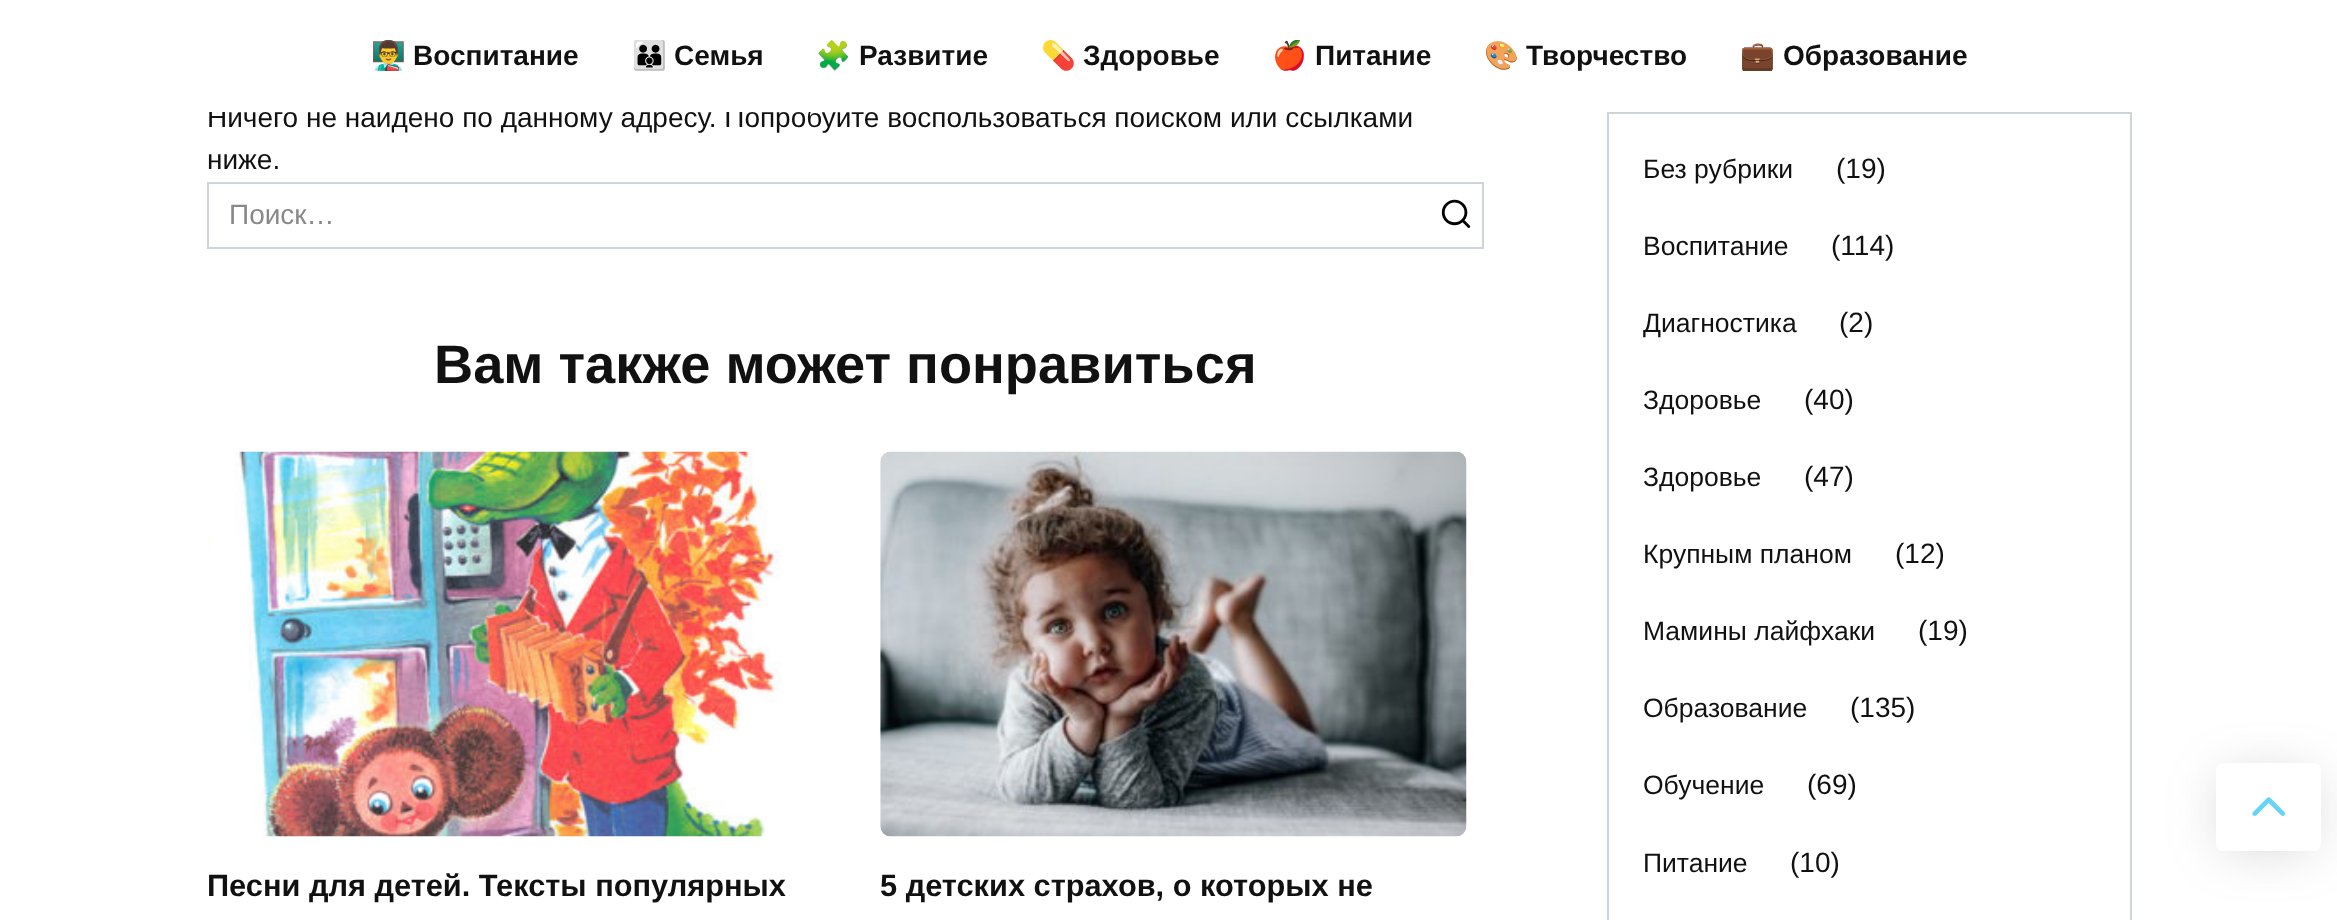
async function draw(canvas) {
	canvas.width = 2337;
	canvas.height = 920;
	const c = canvas.getContext('2d');
	c.miterLimit = 4;
	c.fontKerning = 'normal';
	async function loadImage(src) {
		const img = new Image();
		img.src = src;
		await img.decode();
		return img;
	}

	c.fillStyle = '#fff';
	c.fillRect(0, 0, 2337, 920);
	c.font = '28px Liberation Sans';
	c.fillStyle = '#111';
	c.fillText('Ничего не найдено по данному адресу. Попробуйте воспользоваться поиском или ссылками', 207, 127);
	c.fillStyle = '#fff';
	c.fillRect(208, 106, 1163, 6);
	c.font = 'bold 28px Noto Color Emoji';
	c.fillStyle = '#111';
	c.fillText('👨‍🏫', 371, 65);
	c.font = 'bold 28px Liberation Sans';
	c.fillText('Воспитание', 413, 65);
	c.font = 'bold 28px Noto Color Emoji';
	c.fillText('👪', 632, 65);
	c.font = 'bold 28px Liberation Sans';
	c.fillText('Семья', 674, 65);
	c.font = 'bold 28px Noto Color Emoji';
	c.fillText('🧩', 816, 65);
	c.font = 'bold 28px Liberation Sans';
	c.fillText('Развитие', 859, 65);
	c.font = 'bold 28px Noto Color Emoji';
	c.fillText('💊', 1041, 65);
	c.font = 'bold 28px Liberation Sans';
	c.fillText('Здоровье', 1083, 65);
	c.font = 'bold 28px Noto Color Emoji';
	c.fillText('🍎', 1272, 65);
	c.font = 'bold 28px Liberation Sans';
	c.fillText('Питание', 1315, 65);
	c.font = 'bold 28px Noto Color Emoji';
	c.fillText('🎨', 1484, 65);
	c.font = 'bold 28px Liberation Sans';
	c.fillText('Творчество', 1526, 65);
	c.font = 'bold 28px Noto Color Emoji';
	c.fillText('💼', 1740, 65);
	c.font = 'bold 28px Liberation Sans';
	c.fillText('Образование', 1783, 65);
	c.font = '28px Liberation Sans';
	c.fillText('ниже.', 207, 169);
	c.strokeStyle = '#ced4da';
	c.lineWidth = 2;
	c.strokeRect(208, 183, 1275, 65);
	c.fillStyle = '#888';
	c.fillText('Поиск…', 229, 224);
	c.font = '34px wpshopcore';
	c.fillStyle = '#000';
	c.fillText('🔍', 1439, 228);
	c.font = 'bold 54.25px Liberation Sans';
	c.fillStyle = '#111';
	c.fillText('Вам также может понравиться', 434, 383);
	c.drawImage(await loadImage('img1.png'), 207, 451, 574, 386);
	c.font = 'bold 30.75px Liberation Sans';
	c.fillText('Песни для детей. Тексты популярных', 207, 896);
	c.drawImage(await loadImage('img2.png'), 880, 451, 587, 386);
	c.fillText('5 детских страхов, о которых не', 880, 896);
	c.strokeRect(1608, 113, 523, 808);
	c.font = '26.5px Liberation Sans';
	c.fillText('Без рубрики', 1643, 178);
	c.font = '28px Liberation Sans';
	c.fillText('(19)', 1836, 178);
	c.font = '26.5px Liberation Sans';
	c.fillText('Воспитание', 1643, 255);
	c.font = '28px Liberation Sans';
	c.fillText('(114)', 1831, 255);
	c.font = '26.5px Liberation Sans';
	c.fillText('Диагностика', 1643, 332);
	c.font = '28px Liberation Sans';
	c.fillText('(2)', 1839, 332);
	c.font = '26.5px Liberation Sans';
	c.fillText('Здоровье', 1643, 409);
	c.font = '28px Liberation Sans';
	c.fillText('(40)', 1804, 409);
	c.font = '26.5px Liberation Sans';
	c.fillText('Здоровье', 1643, 486);
	c.font = '28px Liberation Sans';
	c.fillText('(47)', 1804, 486);
	c.font = '26.5px Liberation Sans';
	c.fillText('Крупным планом', 1643, 563);
	c.font = '28px Liberation Sans';
	c.fillText('(12)', 1895, 563);
	c.font = '26.5px Liberation Sans';
	c.fillText('Мамины лайфхаки', 1643, 640);
	c.font = '28px Liberation Sans';
	c.fillText('(19)', 1918, 640);
	c.font = '26.5px Liberation Sans';
	c.fillText('Образование', 1643, 717);
	c.font = '28px Liberation Sans';
	c.fillText('(135)', 1850, 717);
	c.font = '26.5px Liberation Sans';
	c.fillText('Обучение', 1643, 794);
	c.font = '28px Liberation Sans';
	c.fillText('(69)', 1807, 794);
	c.font = '26.5px Liberation Sans';
	c.fillText('Питание', 1643, 872);
	c.font = '28px Liberation Sans';
	c.fillText('(10)', 1790, 872);
	c.fillStyle = '#6666664d';
	c.filter = 'blur(26px)';
	c.beginPath();
	c.rect(2224, 777, 88, 70);
	c.fill();
	c.filter = 'none';
	c.fillStyle = '#fff';
	c.beginPath();
	c.roundRect(2216, 763, 105, 88, 7);
	c.fill();
	c.font = '56px wpshopcore';
	c.fillStyle = '#66d4f8';
	c.fillText('︿', 2240, 830);
}

draw(document.querySelector('canvas'));
